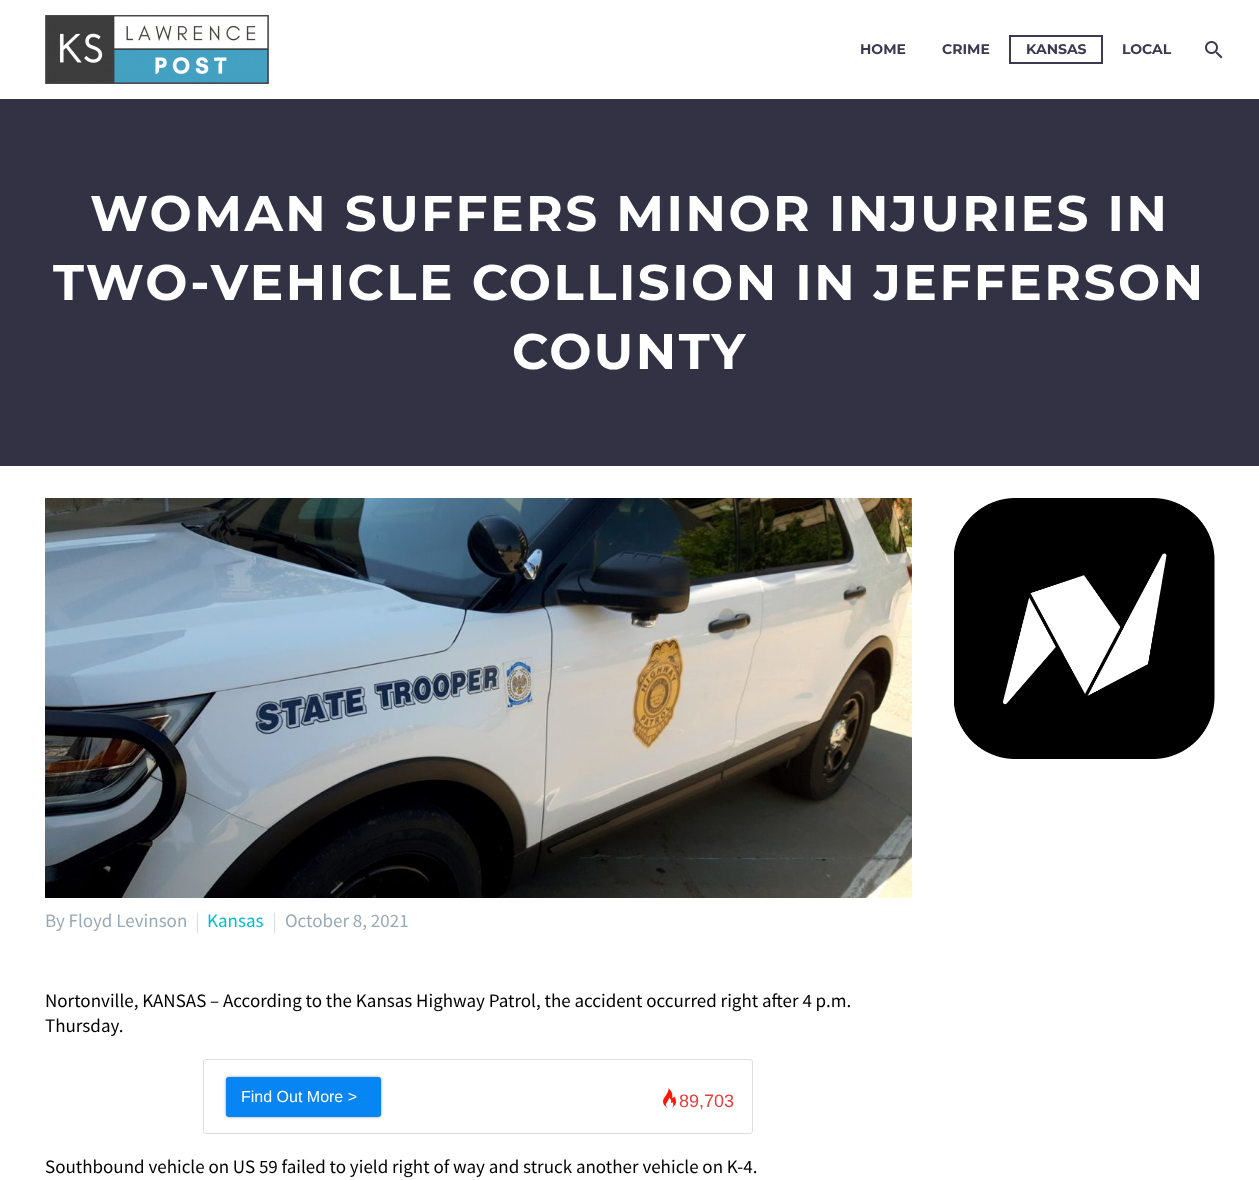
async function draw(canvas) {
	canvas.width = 1259;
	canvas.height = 1180;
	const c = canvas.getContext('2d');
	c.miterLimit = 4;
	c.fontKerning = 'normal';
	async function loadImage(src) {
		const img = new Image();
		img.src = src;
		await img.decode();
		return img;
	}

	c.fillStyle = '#fff';
	c.fillRect(0, 0, 1259, 1180);
	c.drawImage(await loadImage('img1.png'), 45, 15, 224, 69);
	c.font = 'bold 14px Montserrat';
	c.fillStyle = '#3c3950';
	c.fillText('HOME', 860, 54);
	c.fillText('CRIME', 942, 54);
	c.strokeStyle = '#3c3950';
	c.lineWidth = 2;
	c.strokeRect(1010, 36, 92, 27);
	c.fillText('KANSAS', 1026, 54);
	c.fillText('LOCAL', 1122, 54);
	c.drawImage(await loadImage('img2.png'), 1205, 41, 18, 18);
	c.fillStyle = '#333144';
	c.fillRect(0, 99, 1259, 367);
	c.letterSpacing = '2.5px';
	c.font = 'bold 50px Montserrat';
	c.fillStyle = '#fff';
	for (const [text, x, y] of [
		['WOMAN SUFFERS MINOR INJURIES IN', 90, 231],
		['TWO-VEHICLE COLLISION IN JEFFERSON', 53, 300],
		['COUNTY', 512, 369],
	]) {
		c.fillText(text, x, y);
	}
	c.drawImage(await loadImage('img3.png'), 954, 498, 261, 261);
	c.drawImage(await loadImage('img4.png'), 45, 498, 867, 400);
	c.letterSpacing = '0px';
	c.font = '19px Source Sans Pro';
	c.fillStyle = '#99a9b5';
	c.fillText('By Floyd Levinson', 45, 927);
	c.fillStyle = '#d4dee1';
	c.fillRect(197, 913, 1, 20);
	c.fillStyle = '#00bcd4';
	c.fillText('Kansas', 207, 927);
	c.fillStyle = '#d4dee1';
	c.fillRect(274, 913, 1, 20);
	c.fillStyle = '#99a9b5';
	c.fillText('October 8, 2021', 285, 927);
	c.fillStyle = '#000';
	c.fillText('Nortonville, KANSAS – According to the Kansas Highway Patrol, the accident occurred right after 4 p.m.', 45, 1007);
	c.fillText('Thursday.', 45, 1032);
	c.beginPath();
	c.roundRect(203.5, 1059.5, 549, 74, 2.5);
	c.strokeStyle = '#dedede';
	c.lineWidth = 1;
	c.stroke();
	c.fillStyle = '#00000066';
	c.filter = 'blur(1.5px)';
	c.beginPath();
	c.roundRect(226, 1077, 155, 40, 3);
	c.fill();
	c.filter = 'none';
	c.fillStyle = '#0785f2';
	c.beginPath();
	c.roundRect(226, 1077, 155, 40, 3);
	c.fill();
	c.font = '16px Liberation Sans';
	c.fillStyle = '#fff';
	c.fillText('Find Out More >', 241, 1102);
	c.drawImage(await loadImage('img5.png'), 663, 1088, 13, 20);
	c.font = '18px Liberation Sans';
	c.fillStyle = '#e63e3e';
	c.fillText('89,703', 679, 1107);
	c.font = '19px Source Sans Pro';
	c.fillStyle = '#000';
	c.fillText('Southbound vehicle on US 59 failed to yield right of way and struck another vehicle on K-4.', 45, 1173);
}

draw(document.querySelector('canvas'));
